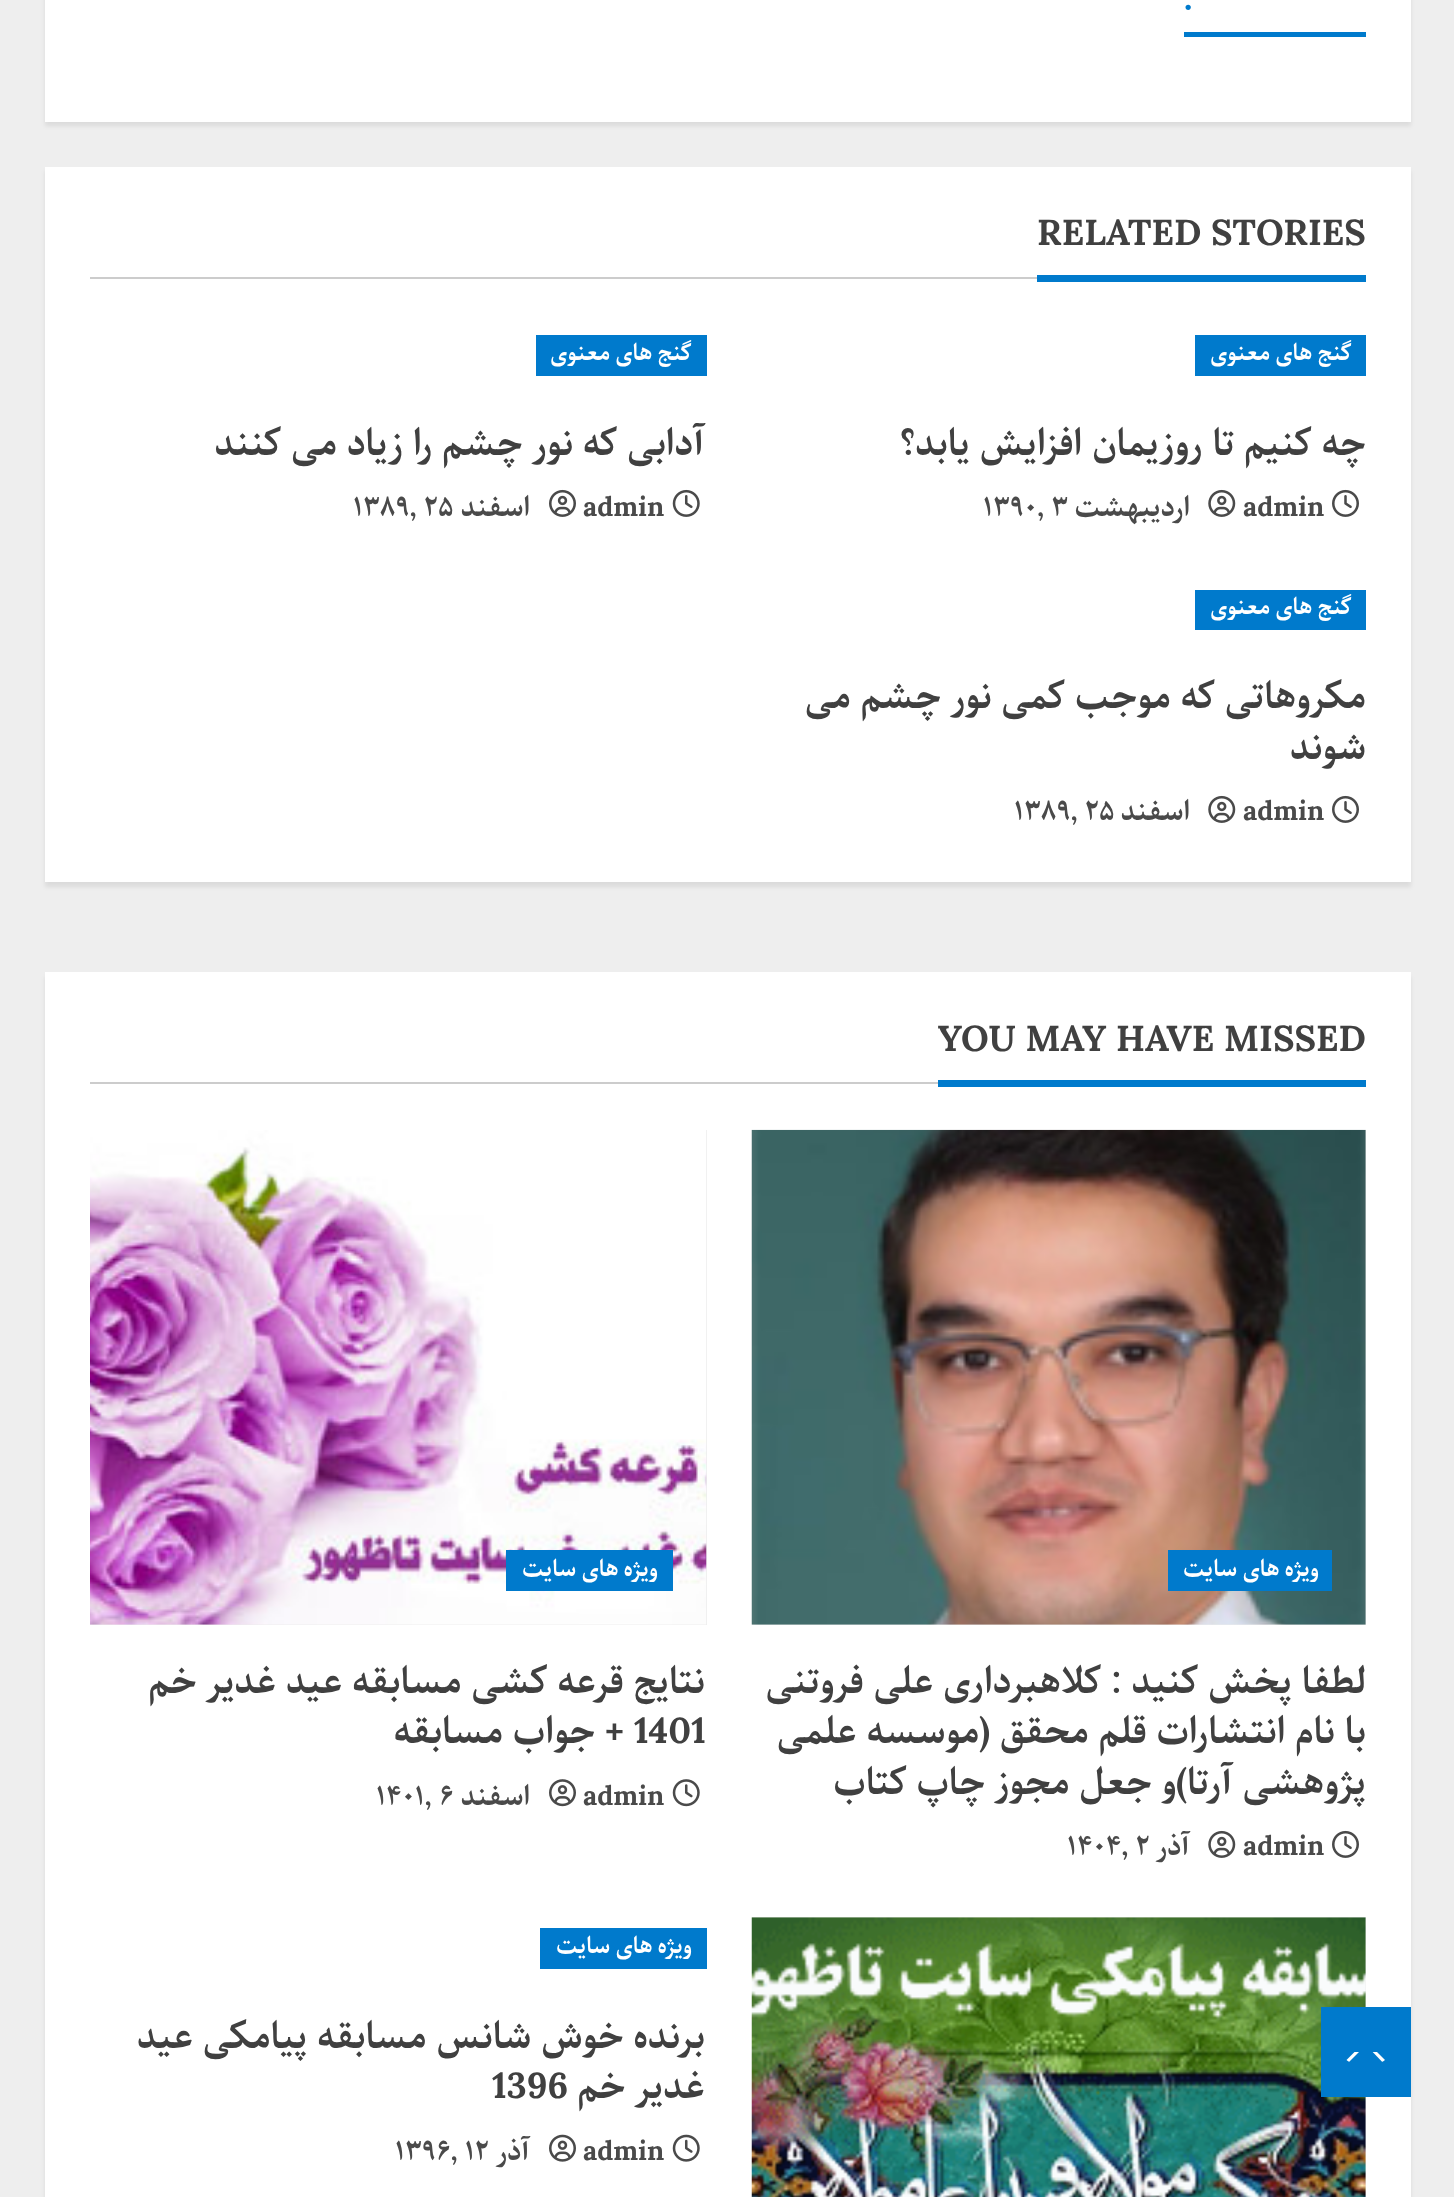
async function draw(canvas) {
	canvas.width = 1454;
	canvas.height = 2197;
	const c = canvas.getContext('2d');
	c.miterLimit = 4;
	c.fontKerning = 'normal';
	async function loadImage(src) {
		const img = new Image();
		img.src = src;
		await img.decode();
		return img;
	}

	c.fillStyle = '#eee';
	c.fillRect(0, 0, 1454, 2197);
	c.fillStyle = '#00000014';
	c.filter = 'blur(2px)';
	c.beginPath();
	c.rect(45, 977, 1366, 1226);
	c.fill();
	c.filter = 'none';
	c.fillStyle = '#fff';
	c.fillRect(45, 972, 1366, 1225);
	c.fillStyle = '#ececec';
	c.fillRect(752, 1917, 614, 280);
	c.drawImage(await loadImage('img9.png'), 751, 1917, 615, 280);
	c.fillStyle = '#007acc';
	c.fillRect(1321, 2007, 90, 90);
	c.fillStyle = '#fff';
	c.beginPath();
	c.moveTo(1385, 2060);
	c.bezierCurveTo(1383, 2062, 1380, 2063, 1377, 2063);
	c.lineTo(1354, 2063);
	c.bezierCurveTo(1351, 2063, 1348.5, 2062, 1346.5, 2060);
	c.lineTo(1354.5, 2052);
	c.lineTo(1377, 2052);
	c.closePath();
	c.fill();
	c.fillStyle = '#007acc';
	c.beginPath();
	c.moveTo(1388, 2068);
	c.lineTo(1343, 2068);
	c.lineTo(1366, 2045);
	c.closePath();
	c.fill();
	c.fillStyle = '#00000014';
	c.filter = 'blur(2px)';
	c.beginPath();
	c.rect(45, -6, 1366, 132);
	c.fill();
	c.filter = 'none';
	c.fillStyle = '#fff';
	c.fillRect(45, 0, 1366, 122);
	c.font = 'bold 36px Parastoo';
	c.fillStyle = '#007acc';
	c.fillText('.', 1183, 10);
	c.fillRect(1184, 32, 182, 5);
	c.fillStyle = '#00000014';
	c.filter = 'blur(2px)';
	c.beginPath();
	c.rect(45, 171, 1366, 716);
	c.fill();
	c.filter = 'none';
	c.fillStyle = '#fff';
	c.fillRect(45, 167, 1366, 715);
	c.fillStyle = '#ccc';
	c.fillRect(90, 277, 947, 2);
	c.fillStyle = '#404040';
	c.fillText('RELATED STORIES', 1037, 245);
	c.fillStyle = '#007acc';
	c.fillRect(1037, 275, 329, 7);
	c.fillRect(1195, 335, 171, 41);
	c.letterSpacing = '0.25px';
	c.wordSpacing = '-1px';
	c.direction = 'rtl';
	c.font = 'bold 22.5px Parastoo';
	c.fillStyle = '#fff';
	c.fillText('گنج های معنوی', 1352, 360);
	c.letterSpacing = '0px';
	c.wordSpacing = '0px';
	c.font = 'bold 36px Parastoo';
	c.fillStyle = '#404040';
	c.fillText('چه کنیم تا روزیمان افزایش یابد؟', 1366, 455);
	c.drawImage(await loadImage('img1.png'), 1332, 489, 27, 28);
	c.direction = 'ltr';
	c.font = 'bold 27px Parastoo';
	c.fillStyle = '#4a4a4a';
	c.fillText('admin', 1243, 516);
	c.drawImage(await loadImage('img2.png'), 1208, 489, 28, 28);
	c.direction = 'rtl';
	c.fillText('اردیبهشت', 1190, 516);
	c.direction = 'ltr';
	c.fillText('۱۳۹۰, ۳', 983, 516);
	c.fillStyle = '#007acc';
	c.fillRect(536, 335, 171, 41);
	c.letterSpacing = '0.25px';
	c.wordSpacing = '-1px';
	c.direction = 'rtl';
	c.font = 'bold 22.5px Parastoo';
	c.fillStyle = '#fff';
	c.fillText('گنج های معنوی', 692, 360);
	c.letterSpacing = '0px';
	c.wordSpacing = '0px';
	c.font = 'bold 36px Parastoo';
	c.fillStyle = '#404040';
	c.fillText('آدابى که نور چشم را زیاد مى کنند', 705, 455);
	c.drawImage(await loadImage('img3.png'), 672, 489, 28, 28);
	c.direction = 'ltr';
	c.font = 'bold 27px Parastoo';
	c.fillStyle = '#4a4a4a';
	c.fillText('admin', 583, 516);
	c.drawImage(await loadImage('img4.png'), 549, 489, 27, 28);
	c.direction = 'rtl';
	c.fillText('اسفند', 530, 516);
	c.direction = 'ltr';
	c.fillText('۱۳۸۹, ۲۵', 353, 516);
	c.fillStyle = '#007acc';
	c.fillRect(1195, 590, 171, 40);
	c.letterSpacing = '0.25px';
	c.wordSpacing = '-1px';
	c.direction = 'rtl';
	c.font = 'bold 22.5px Parastoo';
	c.fillStyle = '#fff';
	c.fillText('گنج های معنوی', 1352, 614);
	c.letterSpacing = '0px';
	c.wordSpacing = '0px';
	c.font = 'bold 36px Parastoo';
	c.fillStyle = '#404040';
	c.fillText('مکروهاتى که موجب کمى نور چشم مى', 1366, 708);
	c.fillText('شوند', 1366, 759);
	c.drawImage(await loadImage('img1.png'), 1332, 795, 27, 28);
	c.direction = 'ltr';
	c.font = 'bold 27px Parastoo';
	c.fillStyle = '#4a4a4a';
	c.fillText('admin', 1243, 820);
	c.drawImage(await loadImage('img2.png'), 1208, 795, 28, 28);
	c.direction = 'rtl';
	c.fillText('اسفند', 1190, 820);
	c.direction = 'ltr';
	c.fillText('۱۳۸۹, ۲۵', 1014, 820);
	c.fillStyle = '#ccc';
	c.fillRect(90, 1082, 848, 2);
	c.font = 'bold 36px Parastoo';
	c.fillStyle = '#404040';
	c.fillText('YOU MAY HAVE MISSED', 938, 1051);
	c.fillStyle = '#007acc';
	c.fillRect(938, 1080, 428, 7);
	c.fillStyle = '#ececec';
	c.fillRect(752, 1130, 614, 495);
	c.drawImage(await loadImage('img5.png'), 751, 1129, 615, 496);
	c.fillStyle = '#007acc';
	c.fillRect(1168, 1550, 164, 41);
	c.letterSpacing = '0.25px';
	c.wordSpacing = '-1px';
	c.direction = 'rtl';
	c.font = 'bold 22.5px Parastoo';
	c.fillStyle = '#fff';
	c.fillText('ویژه های سایت', 1319, 1576);
	c.letterSpacing = '0px';
	c.wordSpacing = '0px';
	c.font = 'bold 36px Parastoo';
	c.fillStyle = '#404040';
	for (const [text, x, y] of [
		['لطفا پخش کنید : کلاهبرداری علی فروتنی', 1366, 1693],
		['با نام انتشارات قلم محقق (موسسه علمی', 1366, 1743],
		['پژوهشی آرتا)و جعل مجوز چاپ کتاب', 1366, 1794],
	]) {
		c.fillText(text, x, y);
	}
	c.drawImage(await loadImage('img1.png'), 1332, 1830, 27, 28);
	c.direction = 'ltr';
	c.font = 'bold 27px Parastoo';
	c.fillStyle = '#4a4a4a';
	c.fillText('admin', 1243, 1855);
	c.drawImage(await loadImage('img2.png'), 1208, 1830, 28, 28);
	c.direction = 'rtl';
	c.fillText('آذر', 1190, 1855);
	c.direction = 'ltr';
	c.fillText('۱۴۰۴, ۲', 1067, 1855);
	c.fillStyle = '#ececec';
	c.fillRect(90, 1130, 617, 495);
	c.drawImage(await loadImage('img6.png'), 90, 1130, 617, 495);
	c.fillStyle = '#007acc';
	c.fillRect(506, 1550, 167, 41);
	c.letterSpacing = '0.25px';
	c.wordSpacing = '-1px';
	c.direction = 'rtl';
	c.font = 'bold 22.5px Parastoo';
	c.fillStyle = '#fff';
	c.fillText('ویژه های سایت', 658, 1576);
	c.letterSpacing = '0px';
	c.wordSpacing = '0px';
	c.font = 'bold 36px Parastoo';
	c.fillStyle = '#404040';
	c.fillText('نتایج قرعه کشی مسابقه عید غدیر خم', 705, 1693);
	c.direction = 'ltr';
	c.fillText('1401', 634, 1743);
	c.direction = 'rtl';
	c.fillText('+ جواب مسابقه', 624, 1743);
	c.drawImage(await loadImage('img7.png'), 672, 1779, 28, 28);
	c.direction = 'ltr';
	c.font = 'bold 27px Parastoo';
	c.fillStyle = '#4a4a4a';
	c.fillText('admin', 583, 1805);
	c.drawImage(await loadImage('img8.png'), 549, 1779, 27, 28);
	c.direction = 'rtl';
	c.fillText('اسفند', 530, 1805);
	c.direction = 'ltr';
	c.fillText('۱۴۰۱, ۶', 376, 1805);
	c.fillStyle = '#007acc';
	c.fillRect(540, 1928, 167, 41);
	c.letterSpacing = '0.25px';
	c.wordSpacing = '-1px';
	c.direction = 'rtl';
	c.font = 'bold 22.5px Parastoo';
	c.fillStyle = '#fff';
	c.fillText('ویژه های سایت', 692, 1953);
	c.letterSpacing = '0px';
	c.wordSpacing = '0px';
	c.font = 'bold 36px Parastoo';
	c.fillStyle = '#404040';
	c.fillText('برنده خوش شانس مسابقه پیامکی عید', 705, 2048);
	c.fillText('غدیر خم', 705, 2098);
	c.direction = 'ltr';
	c.fillText('1396', 492, 2098);
	c.drawImage(await loadImage('img10.png'), 672, 2134, 28, 28);
	c.font = 'bold 27px Parastoo';
	c.fillStyle = '#4a4a4a';
	c.fillText('admin', 583, 2160);
	c.drawImage(await loadImage('img11.png'), 549, 2134, 27, 28);
	c.direction = 'rtl';
	c.fillText('آذر', 530, 2160);
	c.direction = 'ltr';
	c.fillText('۱۳۹۶, ۱۲', 395, 2160);
}

draw(document.querySelector('canvas'));
